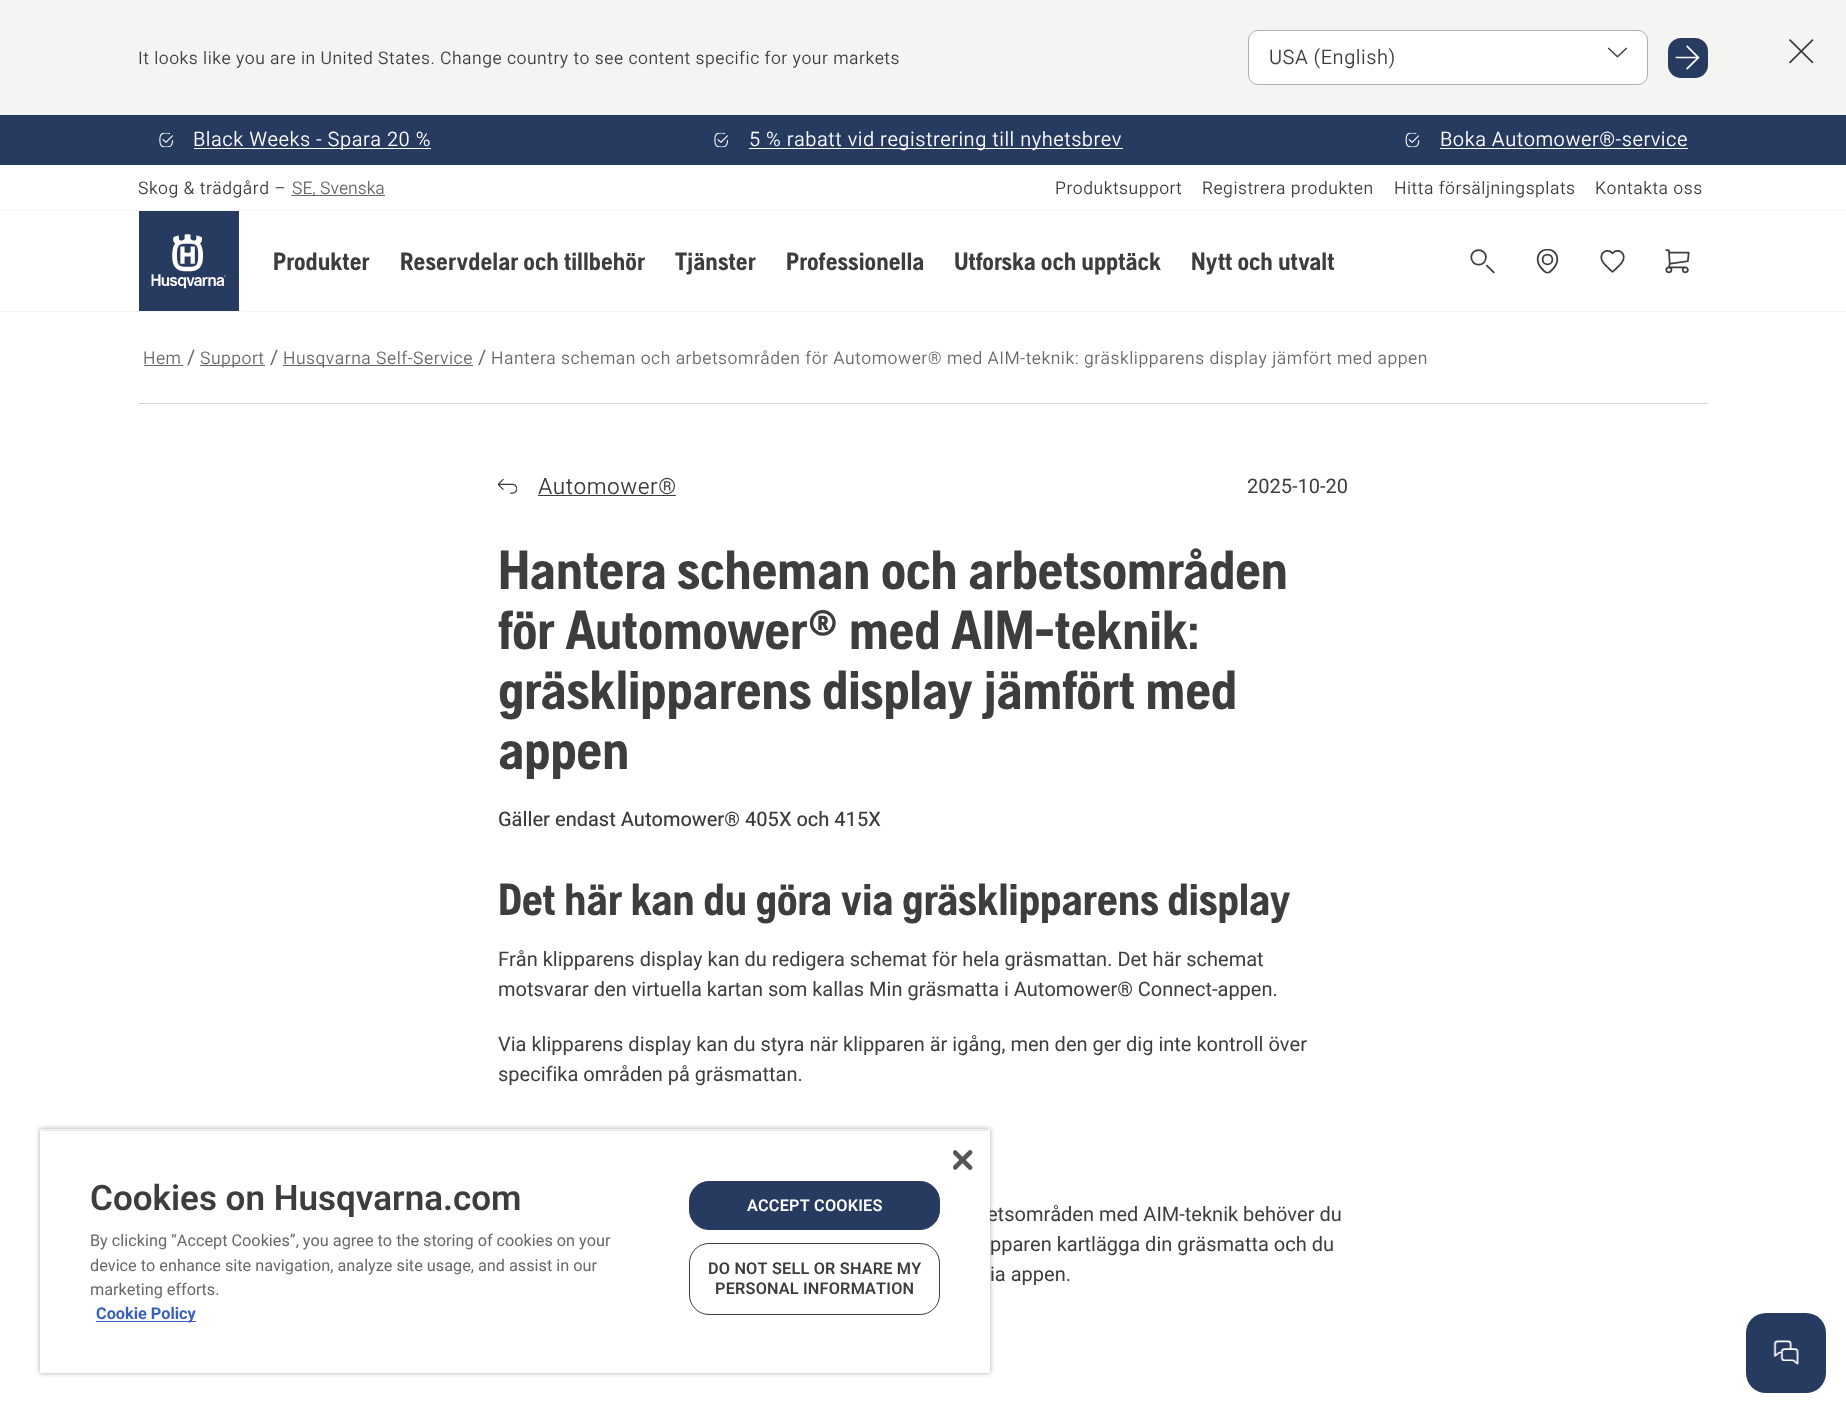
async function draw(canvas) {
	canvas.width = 1846;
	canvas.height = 1412;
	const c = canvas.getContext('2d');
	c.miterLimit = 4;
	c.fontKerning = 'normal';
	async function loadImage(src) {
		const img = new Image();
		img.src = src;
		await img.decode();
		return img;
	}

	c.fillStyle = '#fff';
	c.fillRect(0, 0, 1846, 1412);
	c.fillStyle = '#f4f4f3';
	c.fillRect(0, 0, 1846, 115);
	c.letterSpacing = '0.5px';
	c.font = '300 17.5px Roboto';
	c.fillStyle = '#3d3d3c';
	c.fillText('It looks like you are in United States. Change country to see content specific for your markets', 138, 64);
	c.fillStyle = '#fff';
	c.beginPath();
	c.roundRect(1248.5, 30.5, 399, 54, 9.5);
	c.fill();
	c.strokeStyle = '#b0b0af';
	c.stroke();
	c.font = '300 20px Roboto';
	c.fillStyle = '#3d3d3c';
	c.fillText('USA (English)', 1269, 64);
	c.drawImage(await loadImage('img1.png'), 1608, 47, 19, 11);
	c.fillStyle = '#273a60';
	c.beginPath();
	c.roundRect(1668, 38, 40, 40, 13);
	c.fill();
	c.drawImage(await loadImage('img2.png'), 1675, 45, 25, 25);
	c.drawImage(await loadImage('img3.png'), 1789, 39, 25, 25);
	c.fillRect(0, 115, 1846, 50);
	c.drawImage(await loadImage('img4.png'), 159, 132, 14, 16);
	c.fillStyle = '#fff';
	c.fillRect(194, 148, 237, 1);
	c.fillText('Black Weeks - Spara 20 %', 193, 146);
	c.drawImage(await loadImage('img4.png'), 714, 132, 14, 16);
	c.fillRect(749, 148, 374, 1);
	c.fillText('5 % rabatt vid registrering till nyhetsbrev', 749, 146);
	c.drawImage(await loadImage('img5.png'), 1405, 132, 15, 16);
	c.fillText('Boka Automower®-service', 1440, 146);
	c.fillRect(1440, 148, 248, 1);
	c.fillStyle = '#f5f5f5';
	c.fillRect(0, 210, 1846, 1);
	c.font = '300 17.5px Roboto';
	c.fillStyle = '#3d3d3c';
	c.fillText('Skog & trädgård –', 138, 194);
	c.fillStyle = '#686867';
	c.fillRect(291, 195, 94, 1);
	c.letterSpacing = '0px';
	c.fillText('SE, Svenska', 292, 194);
	c.letterSpacing = '0.5px';
	c.fillStyle = '#3d3d3c';
	for (const [text, x, y] of [
		['Produktsupport', 1055, 194],
		['Registrera produkten', 1202, 194],
		['Hitta försäljningsplats', 1394, 194],
		['Kontakta oss', 1595, 194],
	]) {
		c.fillText(text, x, y);
	}
	c.fillStyle = '#273a60';
	c.fillRect(139, 211, 100, 100);
	c.drawImage(await loadImage('img6.png'), 151, 234, 75, 55);
	c.letterSpacing = '0px';
	c.font = 'bold 25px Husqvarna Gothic';
	c.fillStyle = '#3d3d3c';
	for (const [text, x, y] of [
		['Produkter', 273, 270],
		['Reservdelar och tillbehör', 400, 270],
		['Tjänster', 675, 270],
		['Professionella', 786, 270],
		['Utforska och upptäck', 954, 270],
		['Nytt och utvalt', 1191, 270],
	]) {
		c.fillText(text, x, y);
	}
	c.drawImage(await loadImage('img7.png'), 1470, 249, 25, 25);
	c.drawImage(await loadImage('img8.png'), 1536, 249, 23, 25);
	c.drawImage(await loadImage('img9.png'), 1600, 250, 25, 23);
	c.drawImage(await loadImage('img10.png'), 1665, 249, 25, 25);
	c.fillStyle = '#f5f5f5';
	c.fillRect(0, 311, 1846, 1);
	c.fillStyle = '#d2d2d1';
	c.fillRect(139, 403, 1569, 1);
	c.letterSpacing = '0.5px';
	c.font = '300 17.5px Roboto';
	c.fillStyle = '#686867';
	c.fillText('Hem', 143, 364);
	c.fillRect(144, 365, 39, 1);
	c.letterSpacing = '0px';
	c.font = '20px Roboto';
	c.fillText('/', 187, 364);
	c.fillRect(200, 365, 65, 1);
	c.letterSpacing = '0.5px';
	c.font = '300 17.5px Roboto';
	c.fillText('Support', 200, 364);
	c.letterSpacing = '0px';
	c.font = '20px Roboto';
	c.fillText('/', 270, 364);
	c.fillRect(283, 365, 190, 1);
	c.letterSpacing = '0.5px';
	c.font = '300 17.5px Roboto';
	c.fillText('Husqvarna Self-Service', 283, 364);
	c.letterSpacing = '0px';
	c.font = '20px Roboto';
	c.fillText('/', 478, 364);
	c.letterSpacing = '0.5px';
	c.font = '300 17.5px Roboto';
	c.fillText('Hantera scheman och arbetsområden för Automower® med AIM-teknik: gräsklipparens display jämfört med appen', 491, 364);
	c.drawImage(await loadImage('img11.png'), 497, 478, 21, 16);
	c.font = '300 22.5px Roboto';
	c.fillStyle = '#3d3d3c';
	c.fillText('Automower®', 538, 494);
	c.fillRect(538, 495, 138, 1);
	c.letterSpacing = '0px';
	c.font = '20px Roboto';
	c.fillText('2025-10-20', 1247, 493);
	c.letterSpacing = '-0.5px';
	c.font = 'bold 55px Husqvarna Gothic';
	for (const [text, x, y] of [
		['Hantera scheman och arbetsområden', 498, 589],
		['för Automower® med AIM-teknik:', 498, 649],
		['gräsklipparens display jämfört med', 498, 709],
		['appen', 498, 769],
	]) {
		c.fillText(text, x, y);
	}
	c.letterSpacing = '0px';
	c.font = '20px "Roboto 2"';
	c.fillText('Gäller endast Automower® 405X och 415X', 498, 826);
	c.letterSpacing = '-0.4px';
	c.font = 'bold 45px Husqvarna Gothic';
	c.fillText('Det här kan du göra via gräsklipparens display', 498, 915);
	c.letterSpacing = '0px';
	c.font = '20px Roboto';
	for (const [text, x, y] of [
		['Från klipparens display kan du redigera schemat för hela gräsmattan. Det här schemat', 498, 966],
		['motsvarar den virtuella kartan som kallas Min gräsmatta i Automower® Connect-appen.', 498, 996],
		['Via klipparens display kan du styra när klipparen är igång, men den ger dig inte kontroll över', 498, 1051],
		['specifika områden på gräsmattan.', 498, 1081],
		['etsområden med AIM-teknik behöver du', 987, 1221],
		['pparen kartlägga din gräsmatta och du', 990, 1251],
		['ia appen.', 990, 1281],
	]) {
		c.fillText(text, x, y);
	}
	c.save();
	c.beginPath();
	c.moveTo(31, 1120);
	c.lineTo(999, 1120);
	c.lineTo(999, 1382);
	c.lineTo(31, 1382);
	c.closePath();
	c.moveTo(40, 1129);
	c.lineTo(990, 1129);
	c.lineTo(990, 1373);
	c.lineTo(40, 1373);
	c.closePath();
	c.clip('evenodd');
	c.fillStyle = '#00000059';
	c.filter = 'blur(2.5px)';
	c.beginPath();
	c.rect(40, 1129, 950, 244);
	c.fill();
	c.filter = 'none';
	c.restore();
	c.save();
	c.beginPath();
	c.rect(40, 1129, 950, 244);
	c.clip();
	c.fillStyle = '#00000033';
	c.filter = 'blur(2.5px)';
	c.beginPath();
	c.rect(40, 1131, 950, 242);
	c.fill();
	c.filter = 'none';
	c.restore();
	c.fillStyle = '#fff';
	c.fillRect(40, 1131, 950, 242);
	c.drawImage(await loadImage('img12.png'), 953, 1150, 20, 20);
	c.font = '600 35px Roboto';
	c.fillStyle = '#3d3d3c';
	c.fillText('Cookies on Husqvarna.com', 90, 1210);
	c.font = '16.25px Roboto';
	c.fillStyle = '#686867';
	for (const [text, x, y] of [
		['By clicking “Accept Cookies”, you agree to the storing of cookies on your', 90, 1246],
		['device to enhance site navigation, analyze site usage, and assist in our', 90, 1271],
		['marketing efforts.', 90, 1295],
	]) {
		c.fillText(text, x, y);
	}
	c.fillStyle = '#3860be';
	c.fillRect(96, 1321, 100, 1);
	c.font = 'bold 16.25px Roboto';
	c.fillText('Cookie Policy', 96, 1319);
	c.fillStyle = '#273a60';
	c.beginPath();
	c.roundRect(689.5, 1181.5, 250, 48, 19.5);
	c.fill();
	c.strokeStyle = '#273a60';
	c.stroke();
	c.letterSpacing = '0.2px';
	c.font = '600 16.25px Roboto';
	c.fillStyle = '#fff';
	c.fillText('ACCEPT COOKIES', 747, 1211);
	c.beginPath();
	c.roundRect(689.5, 1243.5, 250, 71, 19.5);
	c.strokeStyle = '#3d3d3c';
	c.stroke();
	c.fillStyle = '#3d3d3c';
	c.fillText('DO NOT SELL OR SHARE MY', 708, 1274);
	c.fillText('PERSONAL INFORMATION', 715, 1294);
	c.fillStyle = '#273a60';
	c.beginPath();
	c.roundRect(1746, 1313, 80, 80, 20);
	c.fill();
	c.drawImage(await loadImage('img13.png'), 1773, 1340, 26, 25);
}

draw(document.querySelector('canvas'));
